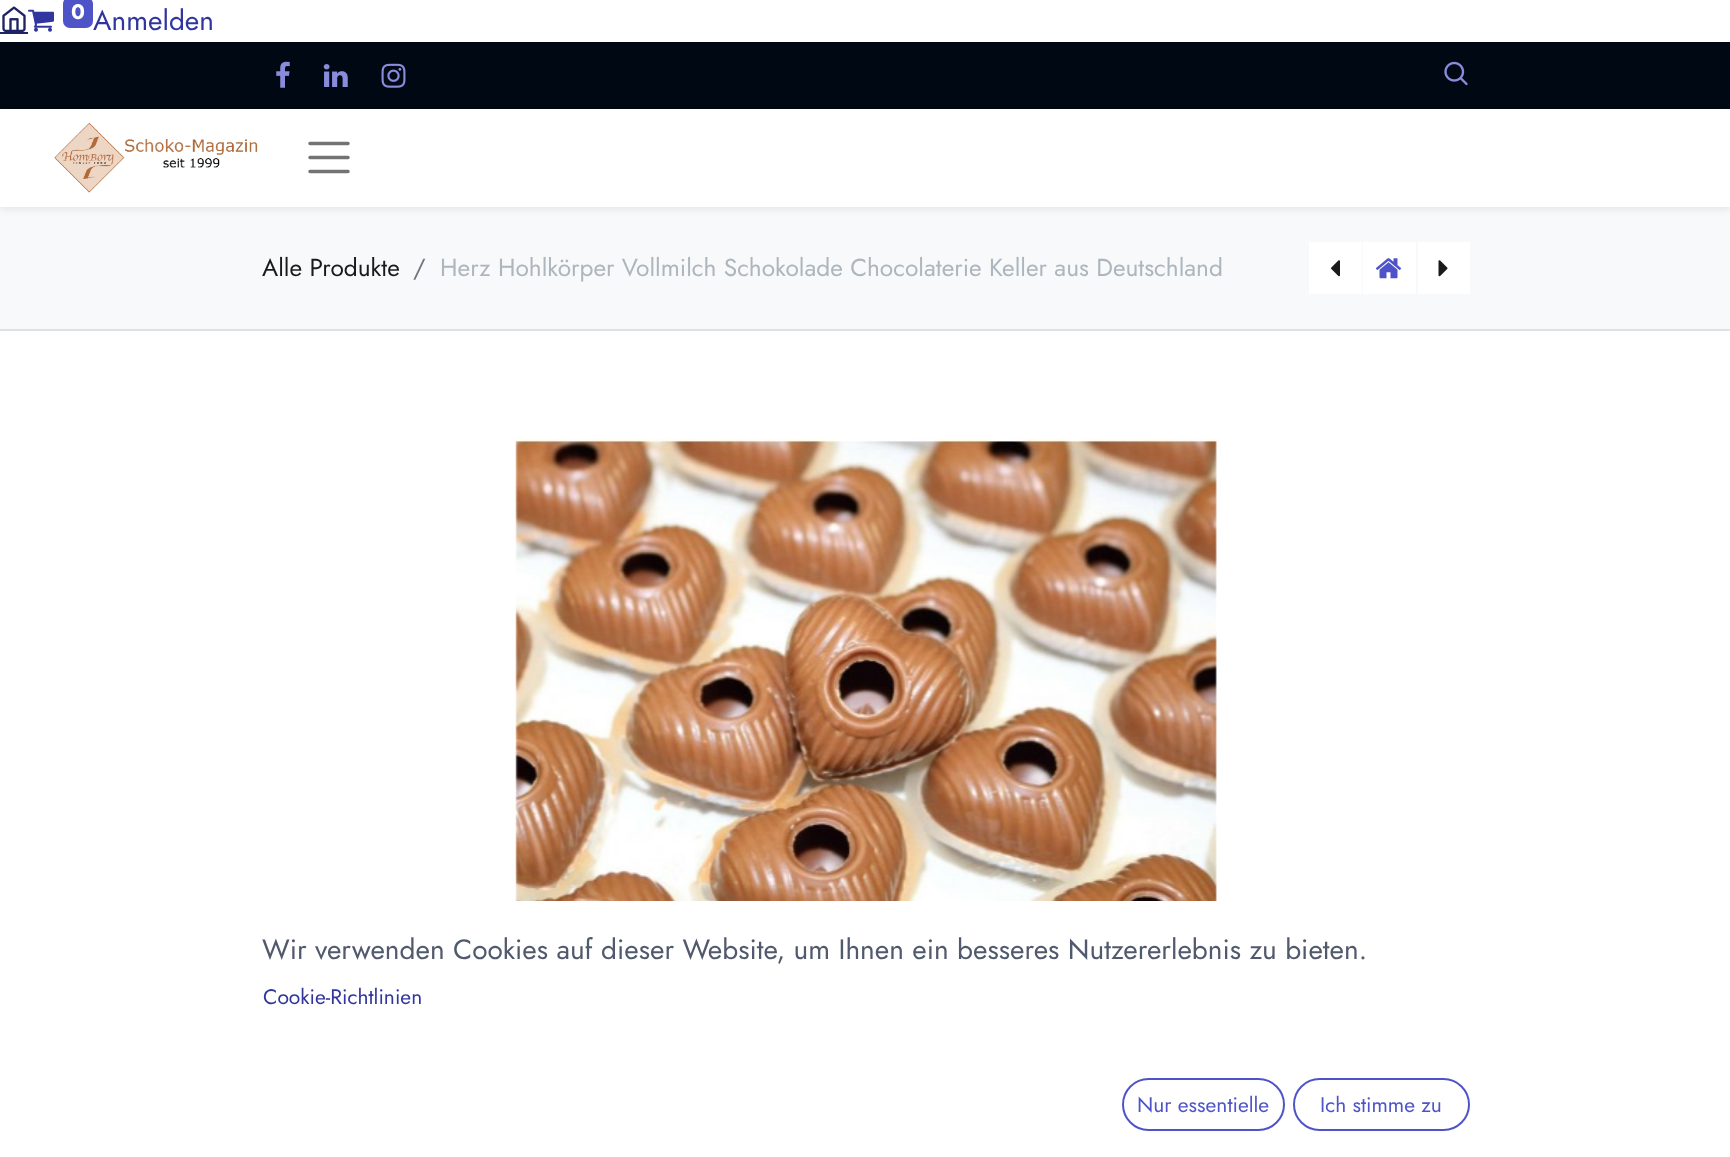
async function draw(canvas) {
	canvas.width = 1730;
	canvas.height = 1157;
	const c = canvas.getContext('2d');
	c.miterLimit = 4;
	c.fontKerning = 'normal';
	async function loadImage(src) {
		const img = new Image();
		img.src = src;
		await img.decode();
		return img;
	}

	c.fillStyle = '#fff';
	c.fillRect(0, 0, 1730, 1157);
	c.drawImage(await loadImage('img1.png'), 2, 6, 24, 26);
	c.fillStyle = '#1f2263';
	c.fillRect(0, 32, 28, 2);
	c.drawImage(await loadImage('img2.png'), 28, 9, 26, 23);
	c.fillStyle = '#4e54c8';
	c.beginPath();
	c.roundRect(63, -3, 30, 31, 7);
	c.fill();
	c.font = 'bold 21px Jost';
	c.fillStyle = '#fff';
	c.fillText('0', 71, 19);
	c.font = '28px Jost';
	c.fillStyle = '#31369e';
	c.fillText('Anmelden', 93, 30);
	c.fillStyle = '#000814';
	c.fillRect(0, 42, 1730, 67);
	c.drawImage(await loadImage('img3.png'), 276, 61, 14, 27);
	c.drawImage(await loadImage('img4.png'), 323, 64, 25, 23);
	c.drawImage(await loadImage('img5.png'), 381, 63, 25, 25);
	c.drawImage(await loadImage('img6.png'), 1444, 61, 24, 25);
	c.fillStyle = '#f8f9fa';
	c.fillRect(0, 207, 1730, 122);
	c.fillStyle = '#00000012';
	c.filter = 'blur(3.5px)';
	c.beginPath();
	c.rect(0, 112, 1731, 98);
	c.fill();
	c.filter = 'none';
	c.fillStyle = '#fff';
	c.fillRect(0, 109, 1730, 98);
	c.drawImage(await loadImage('img7.png'), 54, 123, 204, 70);
	c.beginPath();
	c.moveTo(310, 143.5);
	c.lineTo(348, 143.5);
	c.moveTo(310, 157.5);
	c.lineTo(348, 157.5);
	c.moveTo(310, 171.5);
	c.lineTo(348, 171.5);
	c.strokeStyle = '#737373';
	c.lineWidth = 3.5;
	c.lineCap = 'round';
	c.stroke();
	c.fillStyle = '#dee2e6';
	c.fillRect(0, 329, 1730, 2);
	c.font = '24.5px Jost';
	c.fillStyle = '#1a1a1a';
	c.fillText('Alle Produkte', 262, 276);
	c.fillStyle = '#6c757d';
	c.fillText('/', 413, 276);
	c.fillStyle = '#adb5bd';
	c.fillText('Herz Hohlkörper Vollmilch Schokolade Chocolaterie Keller aus Deutschland', 440, 276);
	c.fillStyle = '#fff';
	c.fillRect(1309, 242, 53, 52);
	c.drawImage(await loadImage('img8.png'), 1331, 260, 9, 17);
	c.fillRect(1363, 242, 53, 52);
	c.drawImage(await loadImage('img9.png'), 1375, 258, 27, 21);
	c.fillRect(1418, 242, 52, 52);
	c.drawImage(await loadImage('img10.png'), 1438, 260, 10, 17);
	c.drawImage(await loadImage('img11.png'), 515, 438, 702, 463);
	c.font = '28px Jost';
	c.fillStyle = '#51596c';
	c.fillText('Wir verwenden Cookies auf dieser Website, um Ihnen ein besseres Nutzererlebnis zu bieten.', 262, 959);
	c.font = '21px Jost';
	c.fillStyle = '#31369e';
	c.fillText('Cookie-Richtlinien', 263, 1004);
	c.beginPath();
	c.roundRect(1123, 1079, 161, 51, 25.5);
	c.strokeStyle = '#4e54c8';
	c.lineWidth = 2;
	c.stroke();
	c.fillStyle = '#4e54c8';
	c.fillText('Nur essentielle', 1137, 1112);
	c.beginPath();
	c.roundRect(1294, 1079, 175, 51, 25.5);
	c.stroke();
	c.fillText('Ich stimme zu', 1320, 1112);
}

draw(document.querySelector('canvas'));
